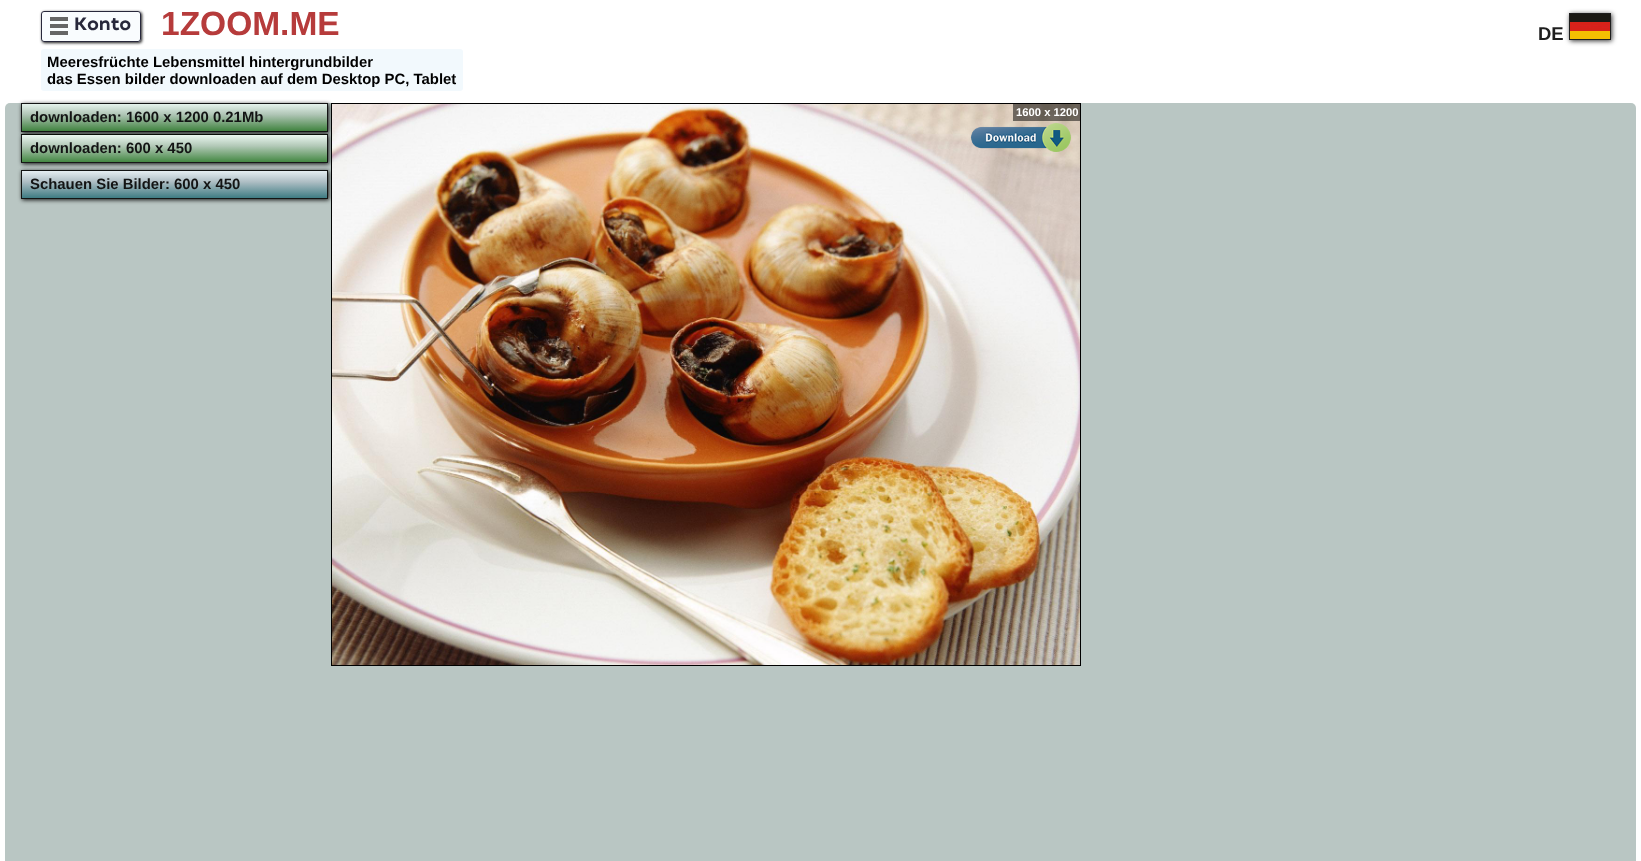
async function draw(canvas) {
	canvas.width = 1641;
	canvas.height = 861;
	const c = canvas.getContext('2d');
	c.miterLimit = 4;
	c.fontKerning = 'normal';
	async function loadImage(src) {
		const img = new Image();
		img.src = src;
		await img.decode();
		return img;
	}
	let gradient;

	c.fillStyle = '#fff';
	c.fillRect(0, 0, 1641, 861);
	c.save();
	c.beginPath();
	c.moveTo(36, 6);
	c.lineTo(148, 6);
	c.lineTo(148, 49);
	c.lineTo(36, 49);
	c.closePath();
	c.moveTo(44, 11);
	c.lineTo(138, 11);
	c.bezierCurveTo(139.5, 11, 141, 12.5, 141, 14);
	c.lineTo(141, 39);
	c.bezierCurveTo(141, 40.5, 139.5, 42, 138, 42);
	c.lineTo(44, 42);
	c.bezierCurveTo(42.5, 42, 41, 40.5, 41, 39);
	c.lineTo(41, 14);
	c.bezierCurveTo(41, 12.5, 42.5, 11, 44, 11);
	c.closePath();
	c.clip('evenodd');
	c.fillStyle = '#000000e6';
	c.filter = 'blur(1.5px)';
	c.beginPath();
	c.roundRect(42, 12, 100, 31, 3);
	c.fill();
	c.filter = 'none';
	c.restore();
	c.fillStyle = '#f0f8fd69';
	c.beginPath();
	c.roundRect(41.5, 11.5, 99, 30, 2.5);
	c.fill();
	c.strokeStyle = '#28283b';
	c.stroke();
	c.drawImage(await loadImage('img1.png'), 50, 17, 18, 18);
	c.font = 'bold 18.5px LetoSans';
	c.fillStyle = '#28283b';
	c.fillText('Konto', 74, 30);
	c.font = 'bold 33.5px Liberation Sans';
	c.fillStyle = '#b63b3b';
	c.fillText('1ZOOM.ME', 161, 35);
	c.fillStyle = '#f2f9fd';
	c.beginPath();
	c.roundRect(41, 49, 422, 42, 3);
	c.fill();
	c.font = 'bold 14.9px Liberation Sans';
	c.fillStyle = '#000';
	c.fillText('Meeresfrüchte Lebensmittel hintergrundbilder', 47, 67);
	c.fillText('das Essen bilder downloaden auf dem Desktop PC, Tablet', 47, 84);
	c.font = 'bold 18.5px Liberation Sans';
	c.fillStyle = '#1e1e1e';
	c.fillText('DE', 1538, 40);
	c.fillStyle = '#000000cc';
	c.filter = 'blur(2.5px)';
	c.beginPath();
	c.rect(1570, 14, 42, 27);
	c.fill();
	c.filter = 'none';
	c.drawImage(await loadImage('img2.png'), 1570, 14, 40, 25);
	c.strokeStyle = '#1e1e1e';
	c.strokeRect(1569.5, 13.5, 41, 26);
	c.fillStyle = '#b9c6c3';
	c.beginPath();
	c.roundRect(5, 103, 1631, 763, 5);
	c.fill();
	c.fillStyle = '#000000e6';
	c.filter = 'blur(2px)';
	c.beginPath();
	c.rect(22, 104, 307, 29);
	c.fill();
	c.filter = 'none';
	gradient = c.createLinearGradient(175, 131, 175, 104);
	gradient.addColorStop(0, '#40833f');
	gradient.addColorStop(0.6, '#aec4b4');
	gradient.addColorStop(1, '#e5f2ec');
	c.fillStyle = gradient;
	c.fillRect(22, 104, 305, 27);
	c.strokeStyle = '#131414';
	c.strokeRect(21.5, 103.5, 306, 28);
	c.font = 'bold 14.9px Liberation Sans';
	c.fillStyle = '#131414';
	c.fillText('downloaden: 1600 x 1200 0.21Mb', 30, 122);
	c.fillStyle = '#000000e6';
	c.filter = 'blur(2px)';
	c.beginPath();
	c.rect(22, 135, 307, 29);
	c.fill();
	c.filter = 'none';
	gradient = c.createLinearGradient(175, 135, 175, 108);
	gradient.addColorStop(0, '#448742');
	gradient.addColorStop(0.6, '#b2c8b7');
	gradient.addColorStop(1, '#e9f6ef');
	c.fillStyle = gradient;
	c.fillRect(21, 134, 307, 1);
	gradient = c.createLinearGradient(175, 162, 175, 135);
	gradient.addColorStop(0, '#448843');
	gradient.addColorStop(0.6, '#b3c9b8');
	gradient.addColorStop(1, '#eaf7f0');
	c.fillStyle = gradient;
	c.fillRect(21, 135, 307, 27);
	gradient = c.createLinearGradient(175, 189, 175, 162);
	gradient.addColorStop(0, '#40833f');
	gradient.addColorStop(0.6, '#aec4b4');
	gradient.addColorStop(1, '#e5f2ec');
	c.fillStyle = gradient;
	c.fillRect(21, 162, 307, 1);
	c.strokeStyle = '#000000e6';
	c.strokeRect(21.5, 134.5, 306, 28);
	c.fillStyle = '#131414';
	c.fillText('downloaden: 600 x 450', 30, 153);
	c.fillStyle = '#000000e6';
	c.filter = 'blur(2px)';
	c.beginPath();
	c.rect(22, 171, 307, 29);
	c.fill();
	c.filter = 'none';
	gradient = c.createLinearGradient(175, 198, 175, 171);
	gradient.addColorStop(0, '#3e7c83');
	gradient.addColorStop(0.6, '#aebec4');
	gradient.addColorStop(1, '#e5eef2');
	c.fillStyle = gradient;
	c.fillRect(22, 171, 305, 27);
	c.strokeStyle = '#121413';
	c.strokeRect(21.5, 170.5, 306, 28);
	c.fillStyle = '#131414';
	c.fillText('Schauen Sie Bilder: 600 x 450', 30, 189);
	c.strokeStyle = '#000';
	c.strokeRect(331.5, 103.5, 749, 562);
	c.drawImage(await loadImage('img3.png'), 332, 104, 748, 561);
	c.fillStyle = '#00000080';
	c.fillRect(1013, 104, 67, 17);
	c.font = 'bold 11.25px Liberation Sans';
	c.fillStyle = '#fff';
	c.fillText('1600 x 1200', 1016, 116);
	c.drawImage(await loadImage('img4.png'), 970, 123, 101, 29);
}

draw(document.querySelector('canvas'));
